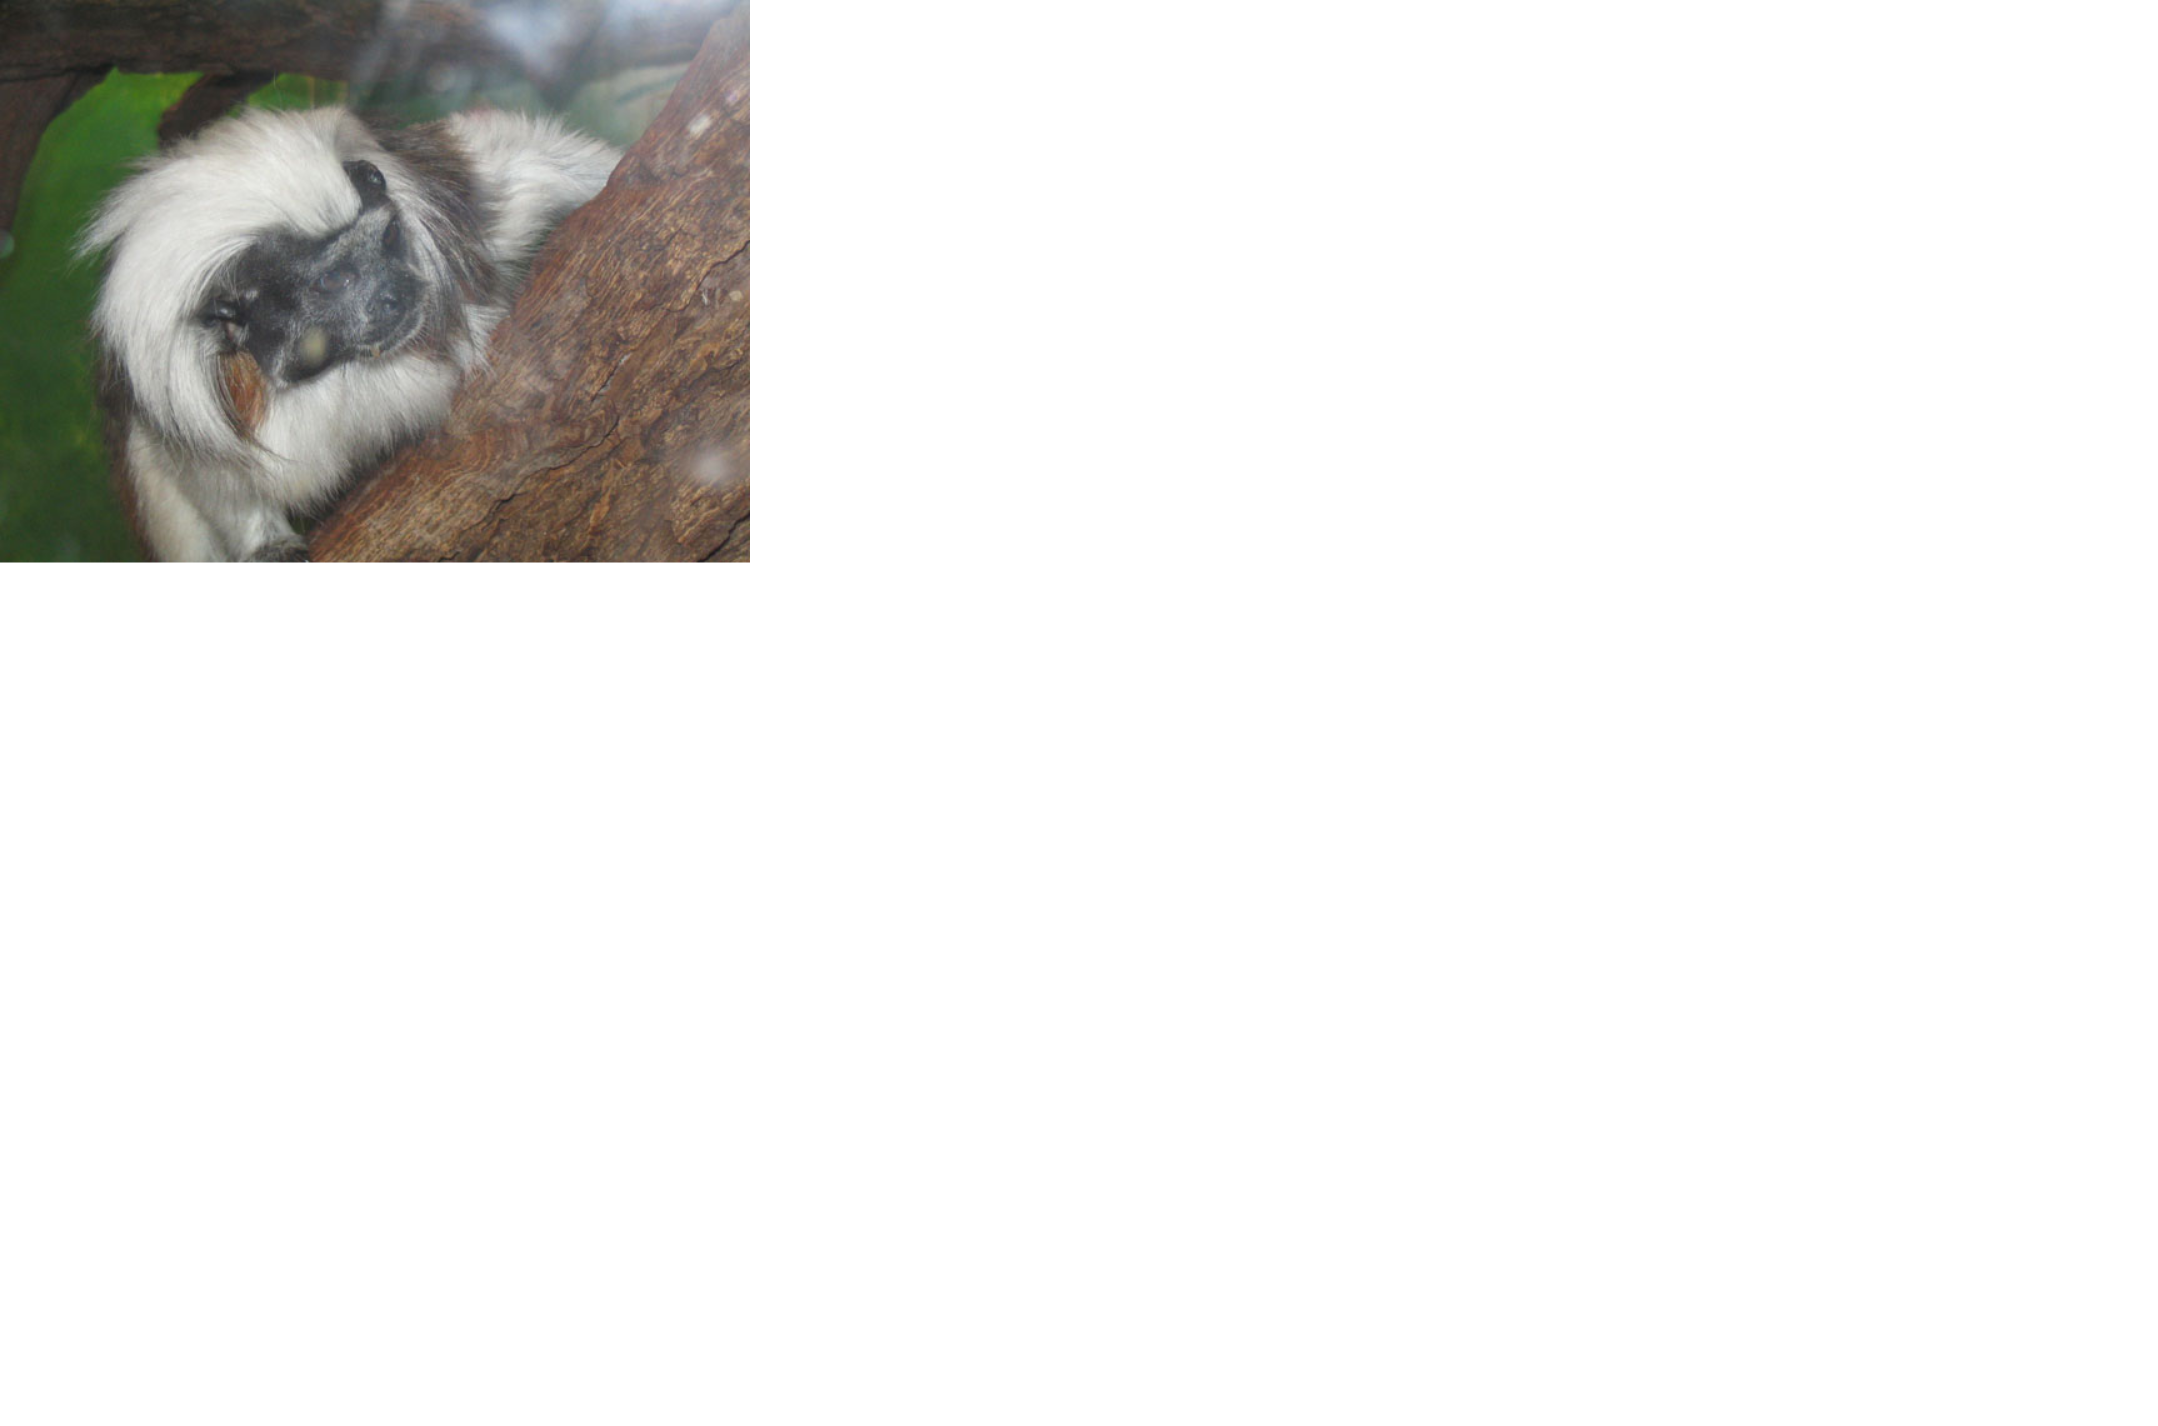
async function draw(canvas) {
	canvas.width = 2158;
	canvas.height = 1426;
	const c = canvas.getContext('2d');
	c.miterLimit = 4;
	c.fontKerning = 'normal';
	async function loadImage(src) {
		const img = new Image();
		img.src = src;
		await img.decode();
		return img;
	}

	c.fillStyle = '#fff';
	c.fillRect(0, 0, 2158, 1426);
	c.drawImage(await loadImage('img1.png'), 0, 0, 750, 563);
}

draw(document.querySelector('canvas'));
